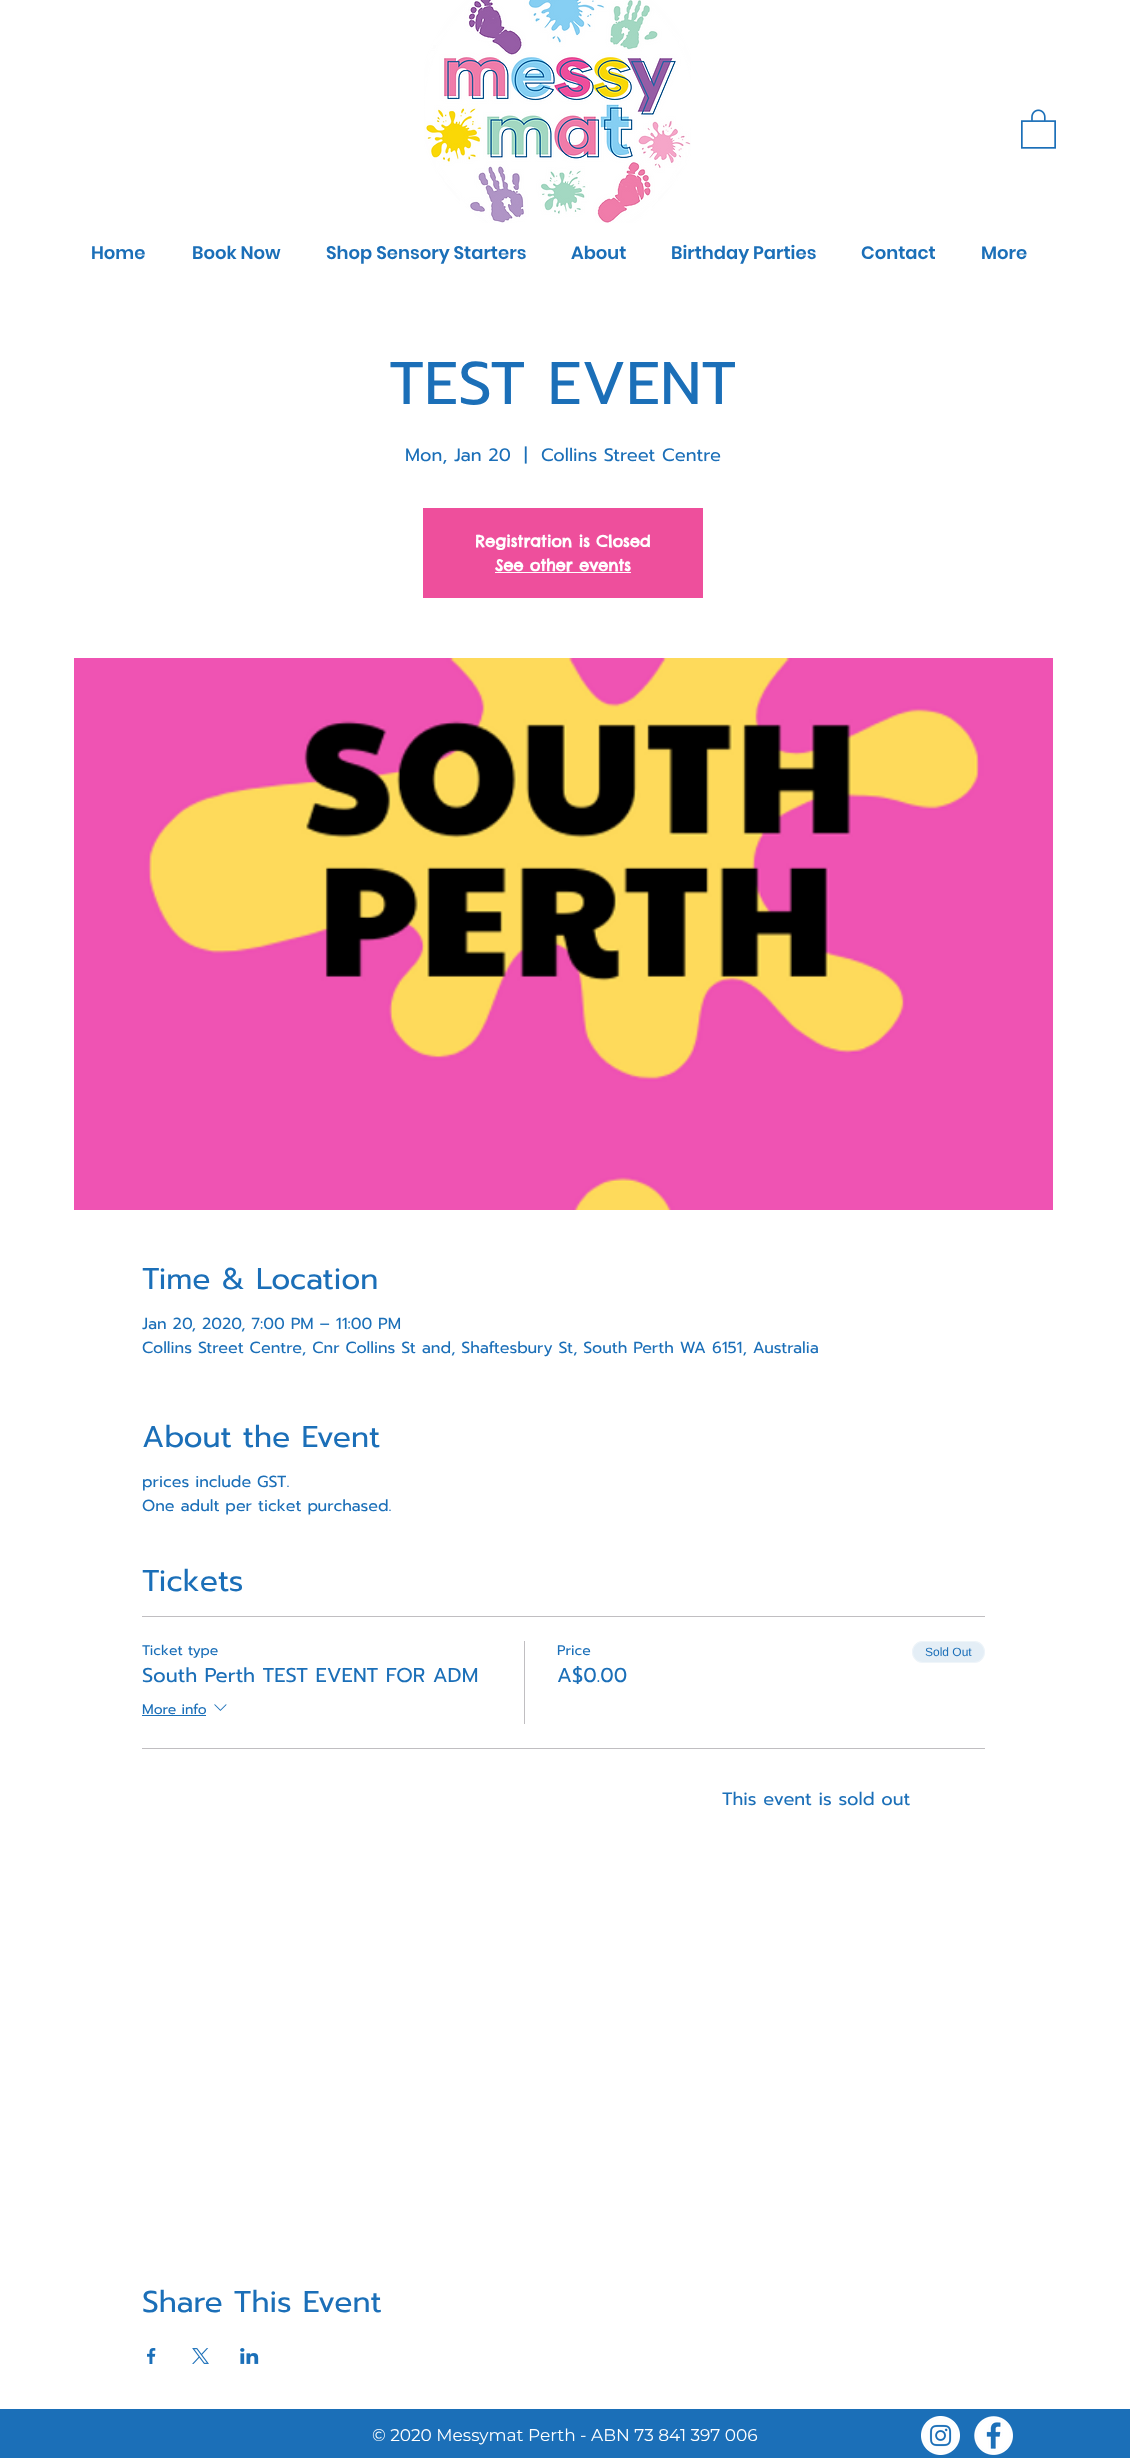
async function draw(canvas) {
	canvas.width = 1130;
	canvas.height = 2458;
	const c = canvas.getContext('2d');
	c.miterLimit = 4;
	c.fontKerning = 'normal';
	async function loadImage(src) {
		const img = new Image();
		img.src = src;
		await img.decode();
		return img;
	}

	c.fillStyle = '#fff';
	c.fillRect(0, 0, 1130, 2458);
	c.drawImage(await loadImage('img1.png'), 424, 0, 267, 223);
	c.drawImage(await loadImage('img2.png'), 1021, 109, 35, 40);
	c.font = '600 18px Poppins';
	c.fillStyle = '#1b6fb8';
	for (const [text, x, y] of [
		['Home', 91, 259],
		['Book Now', 192, 259],
		['Shop Sensory Starters', 326, 259],
		['About', 571, 259],
		['Birthday Parties', 671, 259],
		['Contact', 861, 259],
		['More', 981, 259],
	]) {
		c.fillText(text, x, y);
	}
	c.font = '60px Prompt';
	c.fillText('TEST EVENT', 389, 404);
	c.font = '18px Prompt';
	for (const [text, x, y] of [
		['Mon, Jan 20', 405, 461],
		['|', 524, 461],
		['Collins Street Centre', 541, 461],
	]) {
		c.fillText(text, x, y);
	}
	c.fillStyle = '#ee4f9c';
	c.fillRect(423, 508, 280, 90);
	c.font = 'bold 16px Chelsea Market';
	c.fillStyle = '#fff';
	c.fillText('Registration is Closed', 475, 547);
	c.fillText('See other events', 495, 571);
	c.fillRect(495, 572, 136, 1);
	c.drawImage(await loadImage('img3.png'), 74, 658, 979, 552);
	c.font = '30px Prompt';
	c.fillStyle = '#1b6fb8';
	c.fillText('Time & Location', 142, 1289);
	c.font = '16px Prompt';
	c.fillText('Jan 20, 2020, 7:00 PM – 11:00 PM', 142, 1329);
	c.fillText('Collins Street Centre, Cnr Collins St and, Shaftesbury St, South Perth WA 6151, Australia', 142, 1353);
	c.font = '30px Prompt';
	c.fillText('About the Event', 142, 1447);
	c.font = '16px Prompt';
	c.fillText('prices include GST.', 142, 1487);
	c.fillText('One adult per ticket purchased.', 142, 1511);
	c.font = '30px Prompt';
	c.fillText('Tickets', 142, 1591);
	c.fillStyle = '#c0bec1';
	c.fillRect(142, 1616, 843, 1);
	c.fillRect(142, 1748, 843, 1);
	c.font = '14px Prompt';
	c.fillStyle = '#1b6fb8';
	c.fillText('Ticket type', 142, 1655);
	c.font = '20px Prompt';
	c.fillText('South Perth TEST EVENT FOR ADM', 142, 1682);
	c.font = '14px Prompt';
	c.fillText('More info', 142, 1714);
	c.fillRect(142, 1715, 64, 1);
	c.drawImage(await loadImage('img4.png'), 214, 1704, 13, 7);
	c.fillStyle = '#c0bec1';
	c.fillRect(524, 1641, 1, 83);
	c.fillStyle = '#1b6fb8';
	c.fillText('Price', 557, 1655);
	c.font = '20px Prompt';
	c.fillText('A$0.00', 557, 1682);
	c.fillStyle = '#e4eef6';
	c.beginPath();
	c.roundRect(912, 1641, 73, 22, 11);
	c.fill();
	c.beginPath();
	c.roundRect(912.5, 1641.5, 72, 21, 10.5);
	c.strokeStyle = '#ffffff66';
	c.stroke();
	c.font = '12px Liberation Sans';
	c.fillStyle = '#1b6fb8';
	c.fillText('Sold Out', 925, 1656);
	c.font = '18px Prompt';
	c.fillText('This event is sold out', 722, 1805);
	c.font = '30px Prompt';
	c.fillText('Share This Event', 142, 2312);
	c.drawImage(await loadImage('img5.png'), 147, 2348, 9, 16);
	c.drawImage(await loadImage('img6.png'), 192, 2348, 17, 16);
	c.drawImage(await loadImage('img7.png'), 240, 2348, 19, 16);
	c.fillRect(0, 2409, 1130, 49);
	c.font = '17px Montserrat';
	c.fillStyle = '#fff';
	c.fillText('© 2020 Messymat Perth - ABN 73 841 397 006', 372, 2441);
	c.drawImage(await loadImage('img8.png'), 921, 2416, 39, 39);
	c.drawImage(await loadImage('img9.png'), 974, 2416, 39, 39);
}

draw(document.querySelector('canvas'));
